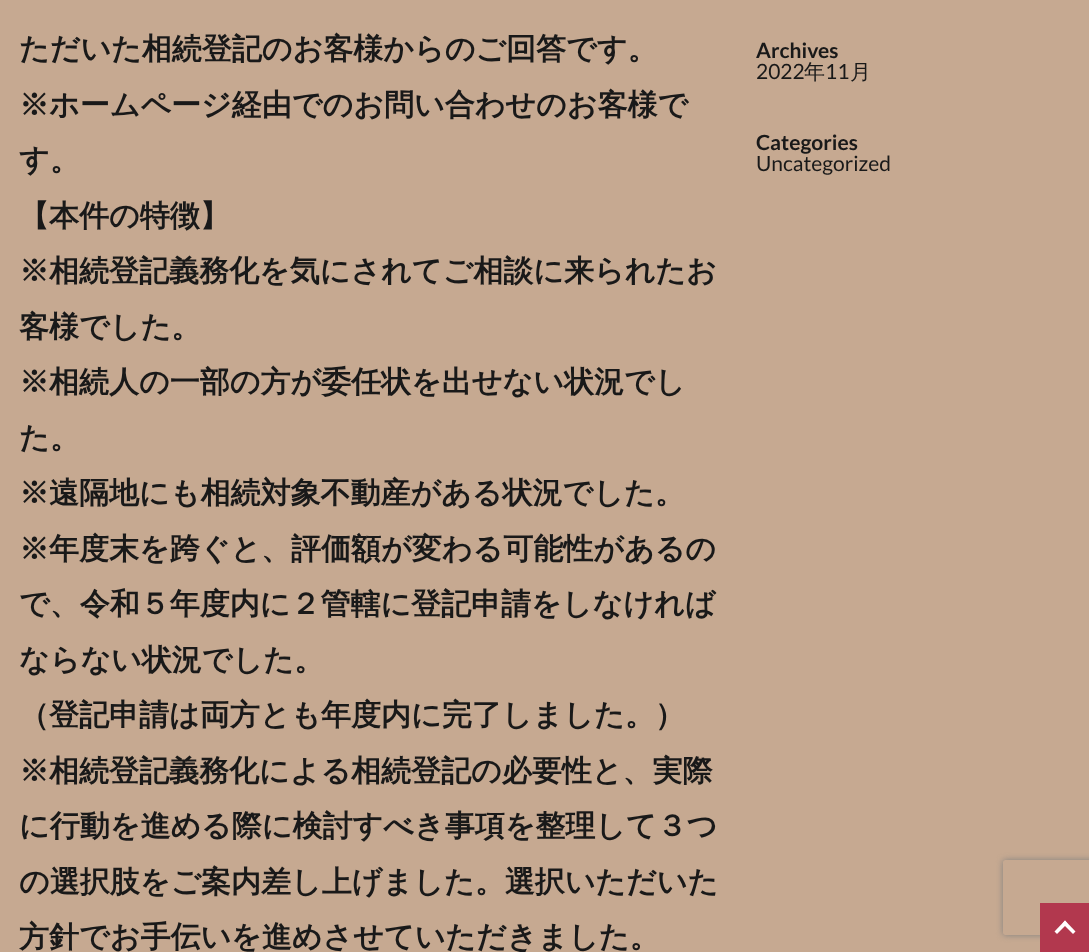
async function draw(canvas) {
	canvas.width = 1089;
	canvas.height = 952;
	const c = canvas.getContext('2d');
	c.miterLimit = 4;
	c.fontKerning = 'normal';

	c.fillStyle = '#c6a991';
	c.fillRect(0, 0, 1089, 952);
	c.font = 'bold 30px WenQuanYi Zen Hei';
	c.fillStyle = '#191919';
	for (const [text, x, y] of [
		['ただいた相続登記のお客様からのご回答です。', 19, 59],
		['※ホームページ経由でのお問い合わせのお客様で', 19, 115],
		['す。', 19, 170],
		['【本件の特徴】', 19, 226],
		['※相続登記義務化を気にされてご相談に来られたお', 19, 281],
		['客様でした。', 19, 337],
		['※相続人の一部の方が委任状を出せない状況でし', 19, 392],
		['た。', 19, 448],
		['※遠隔地にも相続対象不動産がある状況でした。', 19, 503],
		['※年度末を跨ぐと、評価額が変わる可能性があるの', 19, 559],
		['で、令和５年度内に２管轄に登記申請をしなければ', 19, 614],
		['ならない状況でした。', 19, 670],
		['（登記申請は両方とも年度内に完了しました。）', 19, 725],
		['※相続登記義務化による相続登記の必要性と、実際', 19, 781],
		['に行動を進める際に検討すべき事項を整理して３つ', 19, 836],
		['の選択肢をご案内差し上げました。選択いただいた', 19, 892],
		['方針でお手伝いを進めさせていただきました。', 19, 947],
	]) {
		c.fillText(text, x, y);
	}
	c.font = 'bold 21px Lato';
	c.fillText('Archives', 756, 58);
	c.font = '21px Lato';
	c.fillText('2022', 756, 79);
	c.font = '500 21px WenQuanYi Zen Hei';
	c.fillText('年', 804, 79);
	c.font = '21px Lato';
	c.fillText('11', 825, 79);
	c.font = '500 21px WenQuanYi Zen Hei';
	c.fillText('月', 850, 79);
	c.font = 'bold 21px Lato';
	c.fillText('Categories', 756, 150);
	c.font = '21px Lato';
	c.fillText('Uncategorized', 756, 171);
	c.save();
	c.beginPath();
	c.moveTo(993, 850);
	c.lineTo(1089, 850);
	c.lineTo(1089, 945);
	c.lineTo(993, 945);
	c.closePath();
	c.moveTo(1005.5, 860);
	c.lineTo(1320.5, 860);
	c.bezierCurveTo(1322, 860, 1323, 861, 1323, 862.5);
	c.lineTo(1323, 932.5);
	c.bezierCurveTo(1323, 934, 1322, 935, 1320.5, 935);
	c.lineTo(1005.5, 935);
	c.bezierCurveTo(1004, 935, 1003, 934, 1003, 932.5);
	c.lineTo(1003, 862.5);
	c.bezierCurveTo(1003, 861, 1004, 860, 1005.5, 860);
	c.closePath();
	c.clip('evenodd');
	c.fillStyle = '#808080';
	c.filter = 'blur(3px)';
	c.beginPath();
	c.roundRect(1003, 860, 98, 75, 2.5);
	c.fill();
	c.filter = 'none';
	c.restore();
	c.fillStyle = '#b2384e';
	c.fillRect(1040, 903, 49, 49);
	c.fillStyle = '#fff';
	c.beginPath();
	c.moveTo(1054.5, 931.5);
	c.lineTo(1065, 920.5);
	c.lineTo(1067.5, 923.5);
	c.lineTo(1057, 934);
	c.closePath();
	c.fill();
	c.beginPath();
	c.moveTo(1062.5, 923.5);
	c.lineTo(1065, 920.5);
	c.lineTo(1075.5, 931.5);
	c.lineTo(1073, 934);
	c.closePath();
	c.fill();
}

draw(document.querySelector('canvas'));
